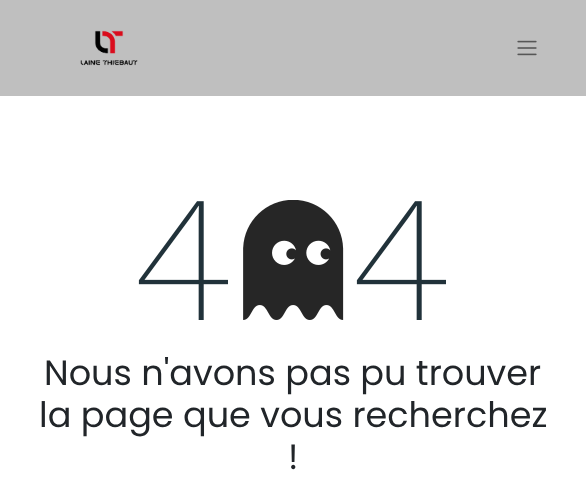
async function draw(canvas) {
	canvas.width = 586;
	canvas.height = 501;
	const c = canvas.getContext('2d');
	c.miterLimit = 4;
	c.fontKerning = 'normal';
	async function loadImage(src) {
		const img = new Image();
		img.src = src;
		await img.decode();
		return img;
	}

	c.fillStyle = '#fff';
	c.fillRect(0, 0, 586, 501);
	c.fillStyle = '#bfbfbf';
	c.fillRect(0, 0, 586, 96);
	c.drawImage(await loadImage('img1.png'), 80, 30, 58, 36);
	c.drawImage(await loadImage('img2.png'), 517, 40, 20, 16);
	c.drawImage(await loadImage('img3.png'), 138, 200, 308, 120);
	c.font = '35.1px Poppins';
	c.fillStyle = '#212529';
	for (const [text, x, y] of [
		['Nous n\'avons pas pu trouver', 44, 385],
		['la page que vous recherchez', 39, 427],
		['!', 288, 469],
	]) {
		c.fillText(text, x, y);
	}
}

draw(document.querySelector('canvas'));
